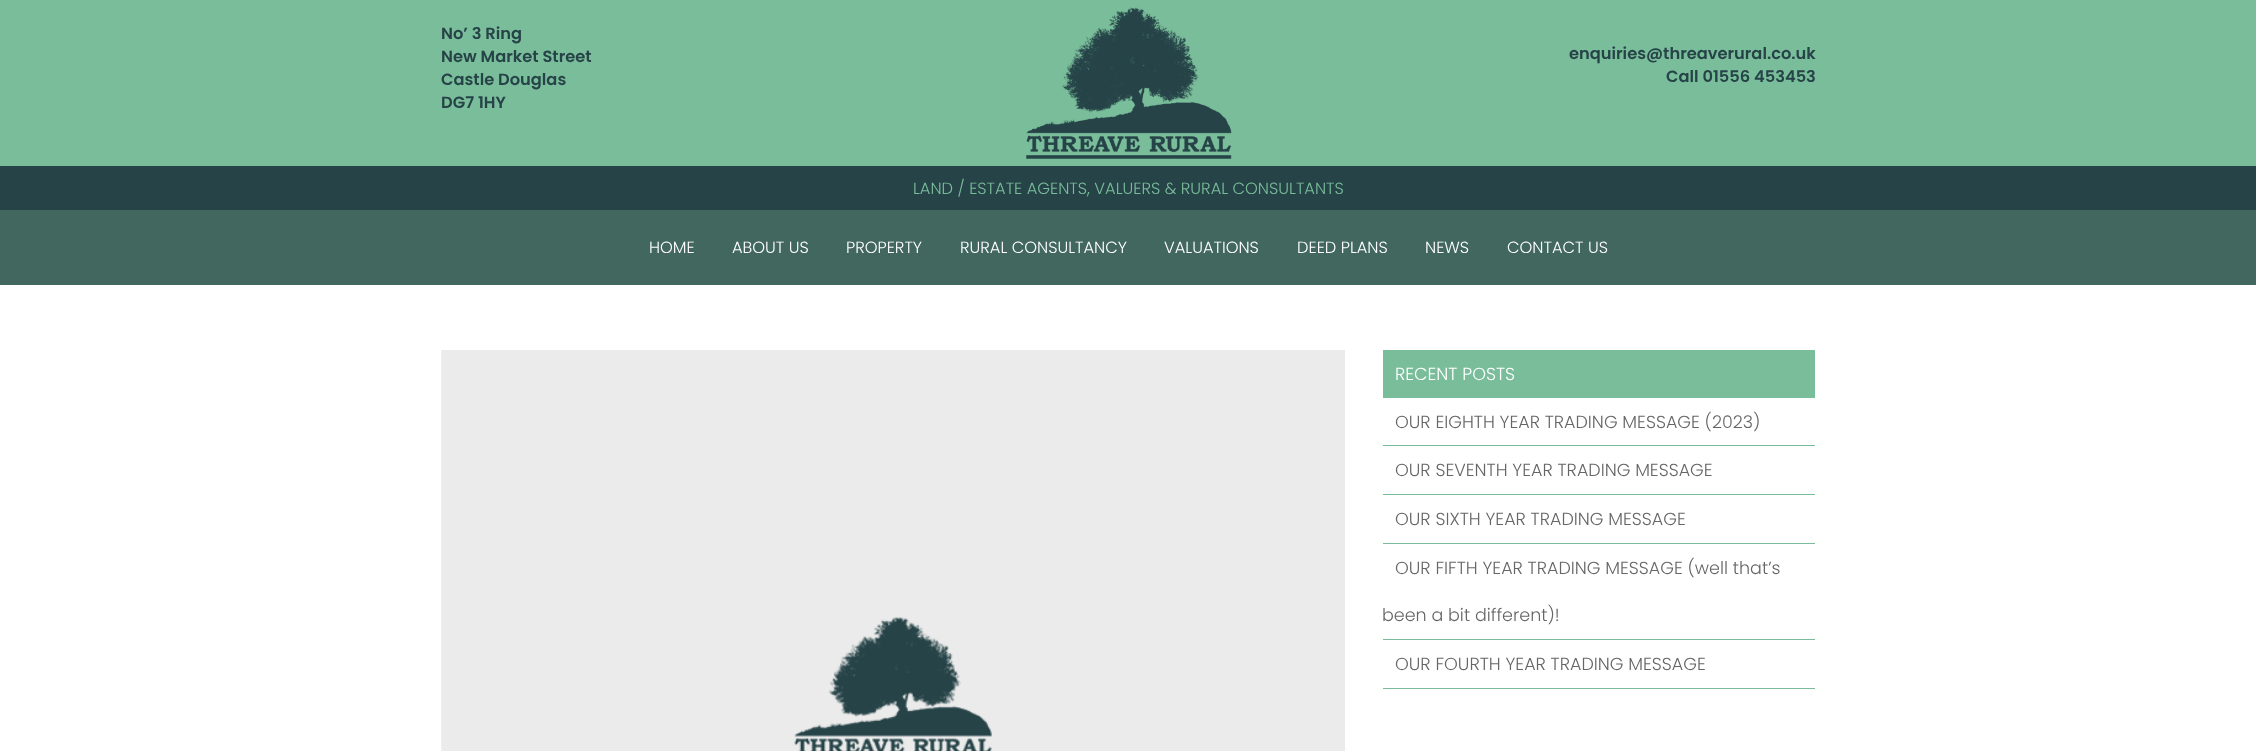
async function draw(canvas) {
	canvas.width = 2256;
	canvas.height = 751;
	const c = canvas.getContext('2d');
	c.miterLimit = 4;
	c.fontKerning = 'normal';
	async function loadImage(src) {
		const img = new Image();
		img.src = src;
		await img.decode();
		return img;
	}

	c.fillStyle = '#fff';
	c.fillRect(0, 0, 2256, 751);
	c.fillStyle = '#79bd9a';
	c.fillRect(0, 0, 2256, 166);
	c.font = '600 16.25px Poppins';
	c.fillStyle = '#264347';
	for (const [text, x, y] of [
		['No’ 3 Ring', 441, 39],
		['New Market Street', 441, 62],
		['Castle Douglas', 441, 85],
		['DG7 1HY', 441, 108],
	]) {
		c.fillText(text, x, y);
	}
	c.drawImage(await loadImage('img1.png'), 1026, 7, 206, 152);
	c.fillText('enquiries@threaverural.co.uk', 1569, 59);
	c.fillText('Call 01556 453453', 1666, 82);
	c.fillRect(0, 166, 2256, 44);
	c.font = '300 16.25px Poppins';
	c.fillStyle = '#79bd9a';
	c.fillText('LAND / ESTATE AGENTS, VALUERS & RURAL CONSULTANTS', 913, 194);
	c.fillStyle = '#41675e';
	c.fillRect(0, 210, 2256, 75);
	c.fillStyle = '#fff';
	for (const [text, x, y] of [
		['HOME', 649, 253],
		['ABOUT US', 732, 253],
		['PROPERTY', 846, 253],
		['RURAL CONSULTANCY', 960, 253],
		['VALUATIONS', 1164, 253],
		['DEED PLANS', 1297, 253],
		['NEWS', 1425, 253],
		['CONTACT US', 1507, 253],
	]) {
		c.fillText(text, x, y);
	}
	c.drawImage(await loadImage('img2.png'), 441, 350, 904, 401);
	c.fillStyle = '#79bd9a';
	c.fillRect(1383, 350, 432, 48);
	c.font = '300 17.5px Poppins';
	c.fillStyle = '#fff';
	c.fillText('RECENT POSTS', 1395, 380);
	c.fillStyle = '#79bd9a';
	c.fillRect(1383, 445, 432, 1);
	c.fillStyle = '#666';
	c.fillText('OUR EIGHTH YEAR TRADING MESSAGE (2023)', 1395, 428);
	c.fillStyle = '#79bd9a';
	c.fillRect(1383, 494, 432, 1);
	c.fillStyle = '#666';
	c.fillText('OUR SEVENTH YEAR TRADING MESSAGE', 1395, 476);
	c.fillStyle = '#79bd9a';
	c.fillRect(1383, 543, 432, 1);
	c.fillStyle = '#666';
	c.fillText('OUR SIXTH YEAR TRADING MESSAGE', 1395, 525);
	c.fillStyle = '#79bd9a';
	c.fillRect(1383, 639, 432, 1);
	c.fillStyle = '#666';
	c.fillText('OUR FIFTH YEAR TRADING MESSAGE (well that’s', 1395, 574);
	c.fillText('been a bit different)!', 1382, 621);
	c.fillStyle = '#79bd9a';
	c.fillRect(1383, 688, 432, 1);
	c.fillStyle = '#666';
	c.fillText('OUR FOURTH YEAR TRADING MESSAGE', 1395, 670);
}

draw(document.querySelector('canvas'));
